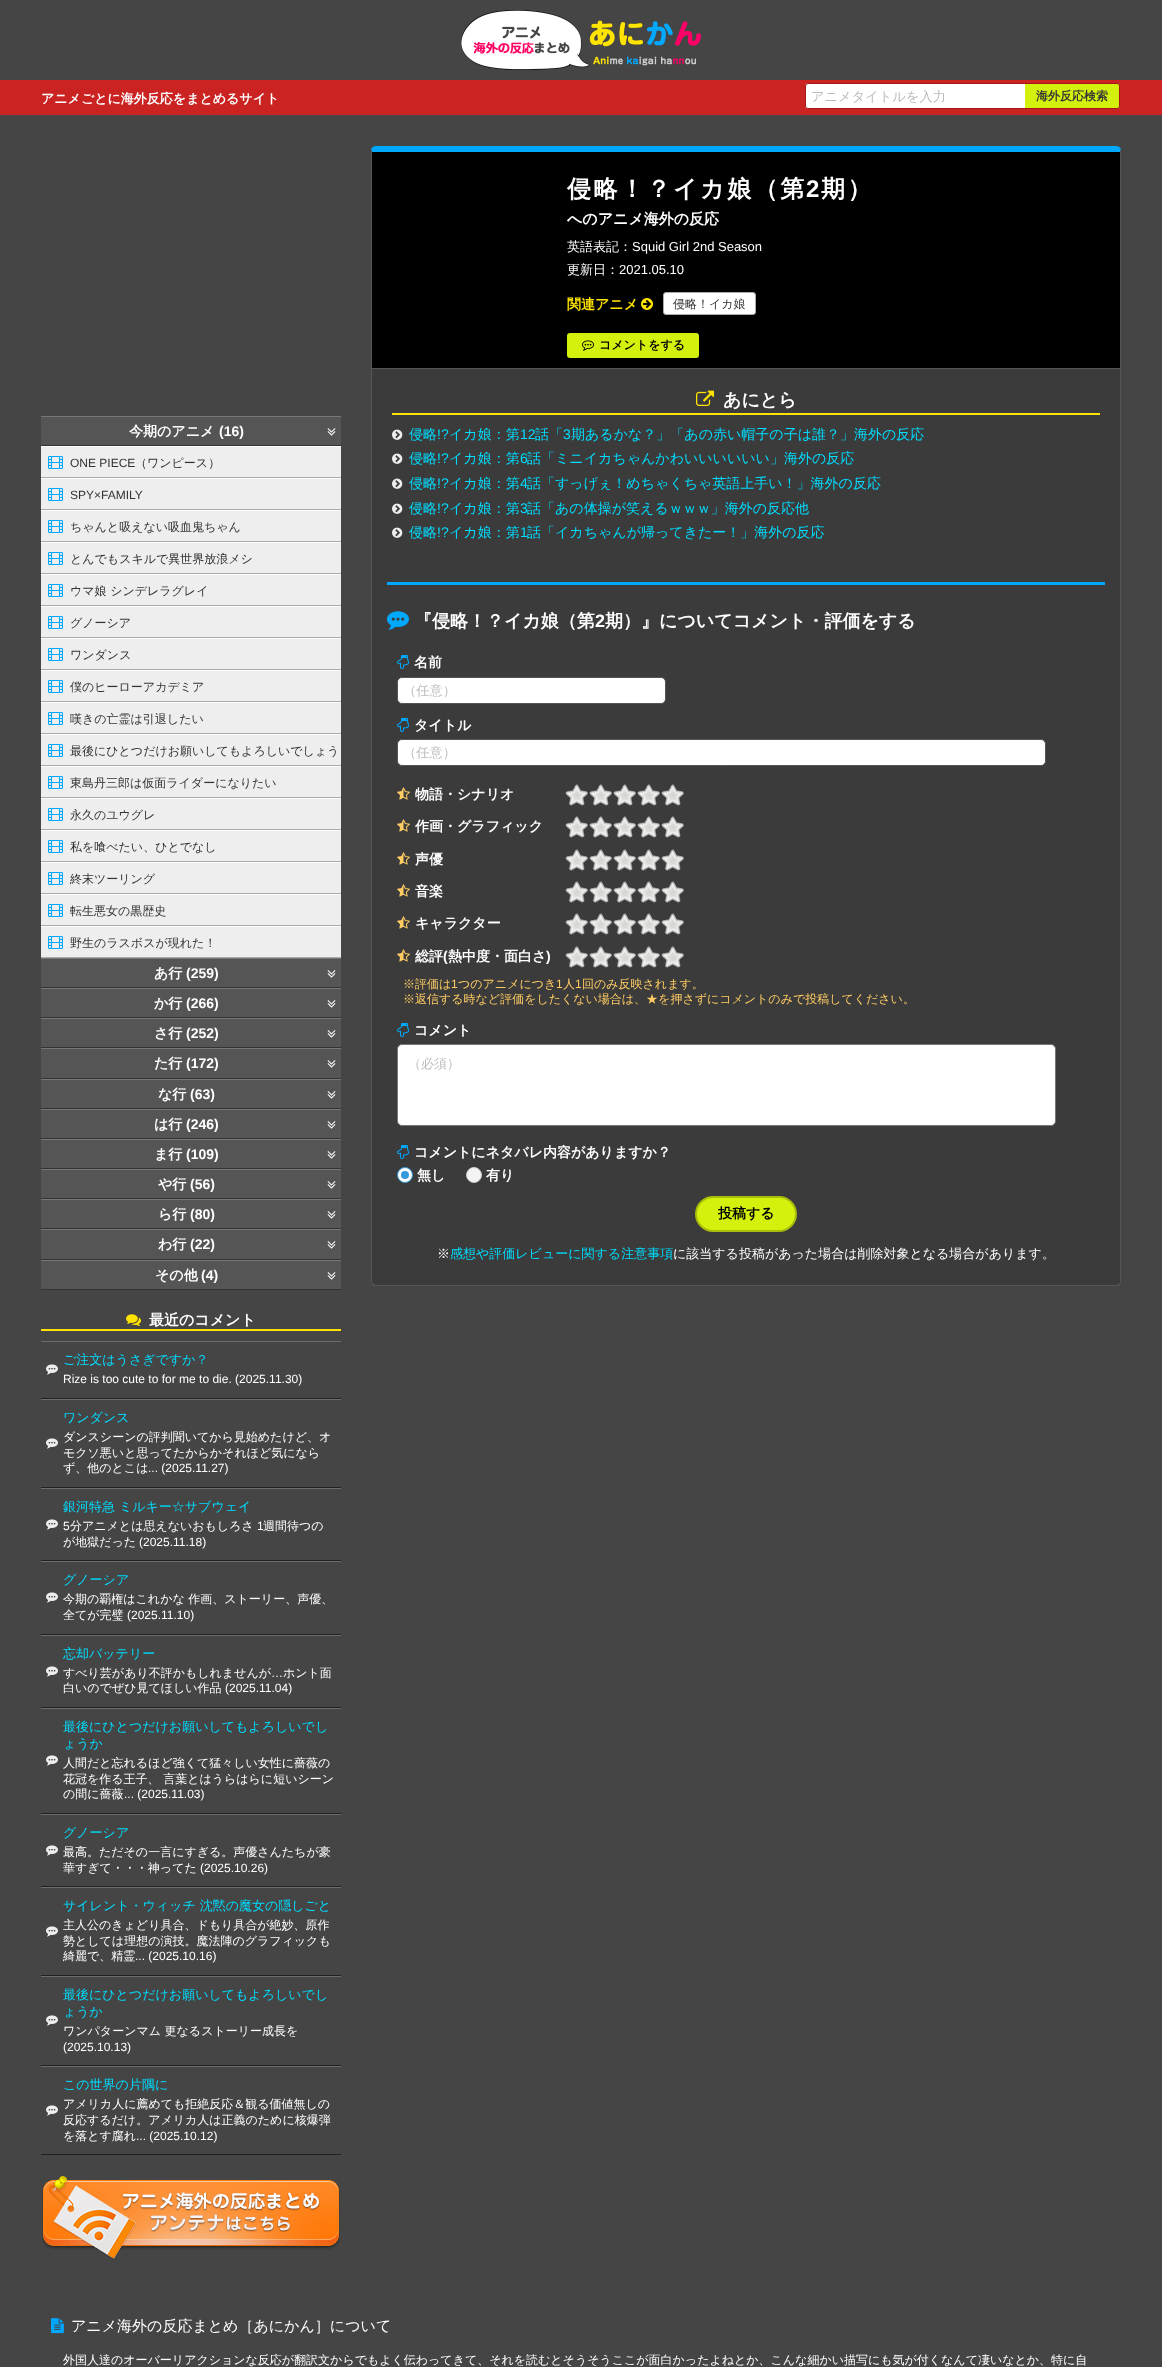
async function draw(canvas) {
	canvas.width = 1162;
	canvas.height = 2367;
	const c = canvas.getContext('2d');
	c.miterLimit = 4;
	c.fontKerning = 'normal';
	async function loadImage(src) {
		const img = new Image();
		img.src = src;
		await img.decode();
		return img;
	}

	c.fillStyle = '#454545';
	c.fillRect(0, 0, 1162, 2367);
	c.fillStyle = '#cb2222';
	c.fillRect(0, 80, 1162, 35);
	c.drawImage(await loadImage('img1.png'), 461, 10, 240, 60);
	c.font = 'bold 13px WenQuanYi Zen Hei';
	c.fillStyle = '#fff';
	c.fillText('アニメごとに海外反応をまとめるサイト', 41, 103);
	c.beginPath();
	c.roundRect(805, 83, 220, 26, [3, 0, 0, 3]);
	c.fill();
	c.fillStyle = '#a31919';
	c.beginPath();
	c.moveTo(808, 83);
	c.lineTo(1025, 83);
	c.lineTo(1025, 109);
	c.lineTo(808, 109);
	c.bezierCurveTo(806, 109, 805, 108, 805, 106);
	c.lineTo(805, 86);
	c.bezierCurveTo(805, 84, 806, 83, 808, 83);
	c.closePath();
	c.moveTo(808, 84);
	c.lineTo(1025, 84);
	c.lineTo(1025, 108);
	c.lineTo(808, 108);
	c.bezierCurveTo(807, 108, 806, 107, 806, 106);
	c.lineTo(806, 86);
	c.bezierCurveTo(806, 85, 807, 84, 808, 84);
	c.closePath();
	c.fill('evenodd');
	c.font = '500 13.25px WenQuanYi Zen Hei';
	c.fillStyle = '#bbb';
	c.fillText('アニメタイトルを入力', 811, 101);
	c.fillStyle = '#d4f10e';
	c.beginPath();
	c.roundRect(1025, 83, 95, 26, [0, 3, 3, 0]);
	c.fill();
	c.fillStyle = '#a31919';
	c.beginPath();
	c.moveTo(1025, 83);
	c.lineTo(1117, 83);
	c.bezierCurveTo(1119, 83, 1120, 84, 1120, 86);
	c.lineTo(1120, 106);
	c.bezierCurveTo(1120, 108, 1119, 109, 1117, 109);
	c.lineTo(1025, 109);
	c.closePath();
	c.moveTo(1025, 84);
	c.lineTo(1117, 84);
	c.bezierCurveTo(1118, 84, 1119, 85, 1119, 86);
	c.lineTo(1119, 106);
	c.bezierCurveTo(1119, 107, 1118, 108, 1117, 108);
	c.lineTo(1025, 108);
	c.closePath();
	c.fill('evenodd');
	c.font = 'bold 12px WenQuanYi Zen Hei';
	c.fillStyle = '#333';
	c.fillText('海外反応検索', 1036, 100);
	for (const [x, y, w, h, color] of [
		[41, 417, 300, 28, '#555'],
		[41, 416, 300, 1, '#777'],
		[41, 445, 300, 1, '#333'],
	]) {
		c.fillStyle = color;
		c.fillRect(x, y, w, h);
	}
	c.font = 'bold 14px WenQuanYi Zen Hei';
	c.fillStyle = '#fff';
	c.fillText('今期のアニメ', 129, 436);
	c.font = 'bold 14px Liberation Sans';
	c.fillText('(16)', 219, 436);
	c.drawImage(await loadImage('img2.png'), 327, 428, 9, 8);
	for (const [x, y, w, h, color] of [
		[41, 447, 300, 30, '#eee'],
		[41, 446, 300, 1, '#fff'],
		[41, 477, 300, 1, '#aaa'],
	]) {
		c.fillStyle = color;
		c.fillRect(x, y, w, h);
	}
	c.drawImage(await loadImage('img3.png'), 48, 456, 15, 13);
	c.font = '12px Liberation Sans';
	c.fillStyle = '#333';
	c.fillText('ONE PIECE', 70, 467);
	c.font = '500 12px WenQuanYi Zen Hei';
	c.fillText('（ワンピース）', 135, 467);
	for (const [x, y, w, h, color] of [
		[41, 479, 300, 30, '#eee'],
		[41, 478, 300, 1, '#fff'],
		[41, 509, 300, 1, '#aaa'],
	]) {
		c.fillStyle = color;
		c.fillRect(x, y, w, h);
	}
	c.drawImage(await loadImage('img3.png'), 48, 488, 15, 13);
	c.font = '12px Liberation Sans';
	c.fillStyle = '#333';
	c.fillText('SPY×FAMILY', 70, 499);
	for (const [x, y, w, h, color] of [
		[41, 511, 300, 30, '#eee'],
		[41, 510, 300, 1, '#fff'],
		[41, 541, 300, 1, '#aaa'],
	]) {
		c.fillStyle = color;
		c.fillRect(x, y, w, h);
	}
	c.drawImage(await loadImage('img3.png'), 48, 520, 15, 13);
	c.font = '500 12px WenQuanYi Zen Hei';
	c.fillStyle = '#333';
	c.fillText('ちゃんと吸えない吸血鬼ちゃん', 70, 531);
	for (const [x, y, w, h, color] of [
		[41, 543, 300, 30, '#eee'],
		[41, 542, 300, 1, '#fff'],
		[41, 573, 300, 1, '#aaa'],
	]) {
		c.fillStyle = color;
		c.fillRect(x, y, w, h);
	}
	c.drawImage(await loadImage('img3.png'), 48, 552, 15, 13);
	c.fillStyle = '#333';
	c.fillText('とんでもスキルで異世界放浪メシ', 70, 563);
	for (const [x, y, w, h, color] of [
		[41, 575, 300, 30, '#eee'],
		[41, 574, 300, 1, '#fff'],
		[41, 605, 300, 1, '#aaa'],
	]) {
		c.fillStyle = color;
		c.fillRect(x, y, w, h);
	}
	c.drawImage(await loadImage('img3.png'), 48, 584, 15, 13);
	c.fillStyle = '#333';
	c.fillText('ウマ娘 シンデレラグレイ', 70, 595);
	for (const [x, y, w, h, color] of [
		[41, 607, 300, 30, '#eee'],
		[41, 606, 300, 1, '#fff'],
		[41, 637, 300, 1, '#aaa'],
	]) {
		c.fillStyle = color;
		c.fillRect(x, y, w, h);
	}
	c.drawImage(await loadImage('img3.png'), 48, 616, 15, 13);
	c.fillStyle = '#333';
	c.fillText('グノーシア', 70, 627);
	for (const [x, y, w, h, color] of [
		[41, 639, 300, 30, '#eee'],
		[41, 638, 300, 1, '#fff'],
		[41, 669, 300, 1, '#aaa'],
	]) {
		c.fillStyle = color;
		c.fillRect(x, y, w, h);
	}
	c.drawImage(await loadImage('img3.png'), 48, 648, 15, 13);
	c.fillStyle = '#333';
	c.fillText('ワンダンス', 70, 659);
	for (const [x, y, w, h, color] of [
		[41, 671, 300, 30, '#eee'],
		[41, 670, 300, 1, '#fff'],
		[41, 701, 300, 1, '#aaa'],
	]) {
		c.fillStyle = color;
		c.fillRect(x, y, w, h);
	}
	c.drawImage(await loadImage('img3.png'), 48, 680, 15, 13);
	c.fillStyle = '#333';
	c.fillText('僕のヒーローアカデミア', 70, 691);
	for (const [x, y, w, h, color] of [
		[41, 703, 300, 30, '#eee'],
		[41, 702, 300, 1, '#fff'],
		[41, 733, 300, 1, '#aaa'],
	]) {
		c.fillStyle = color;
		c.fillRect(x, y, w, h);
	}
	c.drawImage(await loadImage('img3.png'), 48, 712, 15, 13);
	c.fillStyle = '#333';
	c.fillText('嘆きの亡霊は引退したい', 70, 723);
	for (const [x, y, w, h, color] of [
		[41, 735, 300, 30, '#eee'],
		[41, 734, 300, 1, '#fff'],
		[41, 765, 300, 1, '#aaa'],
	]) {
		c.fillStyle = color;
		c.fillRect(x, y, w, h);
	}
	c.drawImage(await loadImage('img3.png'), 48, 744, 15, 13);
	c.fillStyle = '#333';
	c.fillText('最後にひとつだけお願いしてもよろしいでしょう', 70, 755);
	for (const [x, y, w, h, color] of [
		[41, 767, 300, 30, '#eee'],
		[41, 766, 300, 1, '#fff'],
		[41, 797, 300, 1, '#aaa'],
	]) {
		c.fillStyle = color;
		c.fillRect(x, y, w, h);
	}
	c.drawImage(await loadImage('img3.png'), 48, 776, 15, 13);
	c.fillStyle = '#333';
	c.fillText('東島丹三郎は仮面ライダーになりたい', 70, 787);
	for (const [x, y, w, h, color] of [
		[41, 799, 300, 30, '#eee'],
		[41, 798, 300, 1, '#fff'],
		[41, 829, 300, 1, '#aaa'],
	]) {
		c.fillStyle = color;
		c.fillRect(x, y, w, h);
	}
	c.drawImage(await loadImage('img3.png'), 48, 808, 15, 13);
	c.fillStyle = '#333';
	c.fillText('永久のユウグレ', 70, 819);
	for (const [x, y, w, h, color] of [
		[41, 831, 300, 30, '#eee'],
		[41, 830, 300, 1, '#fff'],
		[41, 861, 300, 1, '#aaa'],
	]) {
		c.fillStyle = color;
		c.fillRect(x, y, w, h);
	}
	c.drawImage(await loadImage('img3.png'), 48, 840, 15, 13);
	c.fillStyle = '#333';
	c.fillText('私を喰べたい、ひとでなし', 70, 851);
	for (const [x, y, w, h, color] of [
		[41, 863, 300, 30, '#eee'],
		[41, 862, 300, 1, '#fff'],
		[41, 893, 300, 1, '#aaa'],
	]) {
		c.fillStyle = color;
		c.fillRect(x, y, w, h);
	}
	c.drawImage(await loadImage('img3.png'), 48, 872, 15, 13);
	c.fillStyle = '#333';
	c.fillText('終末ツーリング', 70, 883);
	for (const [x, y, w, h, color] of [
		[41, 895, 300, 30, '#eee'],
		[41, 894, 300, 1, '#fff'],
		[41, 925, 300, 1, '#aaa'],
	]) {
		c.fillStyle = color;
		c.fillRect(x, y, w, h);
	}
	c.drawImage(await loadImage('img3.png'), 48, 904, 15, 13);
	c.fillStyle = '#333';
	c.fillText('転生悪女の黒歴史', 70, 915);
	for (const [x, y, w, h, color] of [
		[41, 927, 300, 30, '#eee'],
		[41, 926, 300, 1, '#fff'],
		[41, 957, 300, 1, '#aaa'],
	]) {
		c.fillStyle = color;
		c.fillRect(x, y, w, h);
	}
	c.drawImage(await loadImage('img3.png'), 48, 936, 15, 13);
	c.fillStyle = '#333';
	c.fillText('野生のラスボスが現れた！', 70, 947);
	for (const [x, y, w, h, color] of [
		[41, 959, 300, 28, '#555'],
		[41, 958, 300, 1, '#777'],
		[41, 987, 300, 1, '#333'],
	]) {
		c.fillStyle = color;
		c.fillRect(x, y, w, h);
	}
	c.font = 'bold 14px WenQuanYi Zen Hei';
	c.fillStyle = '#fff';
	c.fillText('あ行', 154, 978);
	c.font = 'bold 14px Liberation Sans';
	c.fillText('(259)', 186, 978);
	c.drawImage(await loadImage('img2.png'), 327, 970, 9, 8);
	for (const [x, y, w, h, color] of [
		[41, 989, 300, 28, '#555'],
		[41, 988, 300, 1, '#777'],
		[41, 1017, 300, 1, '#333'],
	]) {
		c.fillStyle = color;
		c.fillRect(x, y, w, h);
	}
	c.font = 'bold 14px WenQuanYi Zen Hei';
	c.fillStyle = '#fff';
	c.fillText('か行', 154, 1008);
	c.font = 'bold 14px Liberation Sans';
	c.fillText('(266)', 186, 1008);
	c.drawImage(await loadImage('img2.png'), 327, 1000, 9, 8);
	for (const [x, y, w, h, color] of [
		[41, 1019, 300, 28, '#555'],
		[41, 1018, 300, 1, '#777'],
		[41, 1047, 300, 1, '#333'],
	]) {
		c.fillStyle = color;
		c.fillRect(x, y, w, h);
	}
	c.font = 'bold 14px WenQuanYi Zen Hei';
	c.fillStyle = '#fff';
	c.fillText('さ行', 154, 1038);
	c.font = 'bold 14px Liberation Sans';
	c.fillText('(252)', 186, 1038);
	c.drawImage(await loadImage('img2.png'), 327, 1030, 9, 8);
	for (const [x, y, w, h, color] of [
		[41, 1049, 300, 29, '#555'],
		[41, 1048, 300, 1, '#777'],
		[41, 1078, 300, 1, '#333'],
	]) {
		c.fillStyle = color;
		c.fillRect(x, y, w, h);
	}
	c.font = 'bold 14px WenQuanYi Zen Hei';
	c.fillStyle = '#fff';
	c.fillText('た行', 154, 1068);
	c.font = 'bold 14px Liberation Sans';
	c.fillText('(172)', 186, 1068);
	c.drawImage(await loadImage('img2.png'), 327, 1060, 9, 8);
	for (const [x, y, w, h, color] of [
		[41, 1080, 300, 28, '#555'],
		[41, 1079, 300, 1, '#777'],
		[41, 1108, 300, 1, '#333'],
	]) {
		c.fillStyle = color;
		c.fillRect(x, y, w, h);
	}
	c.font = 'bold 14px WenQuanYi Zen Hei';
	c.fillStyle = '#fff';
	c.fillText('な行', 158, 1099);
	c.font = 'bold 14px Liberation Sans';
	c.fillText('(63)', 190, 1099);
	c.drawImage(await loadImage('img2.png'), 327, 1091, 9, 8);
	for (const [x, y, w, h, color] of [
		[41, 1110, 300, 28, '#555'],
		[41, 1109, 300, 1, '#777'],
		[41, 1138, 300, 1, '#333'],
	]) {
		c.fillStyle = color;
		c.fillRect(x, y, w, h);
	}
	c.font = 'bold 14px WenQuanYi Zen Hei';
	c.fillStyle = '#fff';
	c.fillText('は行', 154, 1129);
	c.font = 'bold 14px Liberation Sans';
	c.fillText('(246)', 186, 1129);
	c.drawImage(await loadImage('img2.png'), 327, 1121, 9, 8);
	for (const [x, y, w, h, color] of [
		[41, 1140, 300, 28, '#555'],
		[41, 1139, 300, 1, '#777'],
		[41, 1168, 300, 1, '#333'],
	]) {
		c.fillStyle = color;
		c.fillRect(x, y, w, h);
	}
	c.font = 'bold 14px WenQuanYi Zen Hei';
	c.fillStyle = '#fff';
	c.fillText('ま行', 154, 1159);
	c.font = 'bold 14px Liberation Sans';
	c.fillText('(109)', 186, 1159);
	c.drawImage(await loadImage('img2.png'), 327, 1151, 9, 8);
	for (const [x, y, w, h, color] of [
		[41, 1170, 300, 28, '#555'],
		[41, 1169, 300, 1, '#777'],
		[41, 1198, 300, 1, '#333'],
	]) {
		c.fillStyle = color;
		c.fillRect(x, y, w, h);
	}
	c.font = 'bold 14px WenQuanYi Zen Hei';
	c.fillStyle = '#fff';
	c.fillText('や行', 158, 1189);
	c.font = 'bold 14px Liberation Sans';
	c.fillText('(56)', 190, 1189);
	c.drawImage(await loadImage('img2.png'), 327, 1181, 9, 8);
	for (const [x, y, w, h, color] of [
		[41, 1200, 300, 28, '#555'],
		[41, 1199, 300, 1, '#777'],
		[41, 1228, 300, 1, '#333'],
	]) {
		c.fillStyle = color;
		c.fillRect(x, y, w, h);
	}
	c.font = 'bold 14px WenQuanYi Zen Hei';
	c.fillStyle = '#fff';
	c.fillText('ら行', 158, 1219);
	c.font = 'bold 14px Liberation Sans';
	c.fillText('(80)', 190, 1219);
	c.drawImage(await loadImage('img2.png'), 327, 1211, 9, 8);
	for (const [x, y, w, h, color] of [
		[41, 1230, 300, 29, '#555'],
		[41, 1229, 300, 1, '#777'],
		[41, 1259, 300, 1, '#333'],
	]) {
		c.fillStyle = color;
		c.fillRect(x, y, w, h);
	}
	c.font = 'bold 14px WenQuanYi Zen Hei';
	c.fillStyle = '#fff';
	c.fillText('わ行', 158, 1249);
	c.font = 'bold 14px Liberation Sans';
	c.fillText('(22)', 190, 1249);
	c.drawImage(await loadImage('img2.png'), 327, 1241, 9, 8);
	for (const [x, y, w, h, color] of [
		[41, 1261, 300, 28, '#555'],
		[41, 1260, 300, 1, '#777'],
		[41, 1289, 300, 1, '#333'],
	]) {
		c.fillStyle = color;
		c.fillRect(x, y, w, h);
	}
	c.font = 'bold 14px WenQuanYi Zen Hei';
	c.fillStyle = '#fff';
	c.fillText('その他', 155, 1280);
	c.font = 'bold 14px Liberation Sans';
	c.fillText('(4)', 201, 1280);
	c.drawImage(await loadImage('img2.png'), 327, 1272, 9, 8);
	c.fillStyle = '#fee300';
	c.fillRect(41, 1329, 300, 2);
	c.drawImage(await loadImage('img4.png'), 126, 1314, 15, 12);
	c.font = 'bold 15px WenQuanYi Zen Hei';
	c.fillStyle = '#fff';
	c.fillText('最近のコメント', 149, 1325);
	c.fillStyle = '#6d6d6d';
	c.fillRect(41, 1341, 300, 1);
	c.fillStyle = '#212121';
	c.fillRect(41, 1398, 300, 1);
	c.drawImage(await loadImage('img5.png'), 46, 1364, 12, 11);
	c.font = '500 13px WenQuanYi Zen Hei';
	c.fillStyle = '#0df';
	c.fillText('ご注文はうさぎですか？', 63, 1364);
	c.font = '12px Liberation Sans';
	c.fillStyle = '#fff';
	c.fillText('Rize is too cute to for me to die. (2025.11.30)', 63, 1383);
	c.fillStyle = '#6d6d6d';
	c.fillRect(41, 1399, 300, 1);
	c.fillStyle = '#212121';
	c.fillRect(41, 1487, 300, 1);
	c.drawImage(await loadImage('img5.png'), 46, 1438, 12, 11);
	c.font = '500 13px WenQuanYi Zen Hei';
	c.fillStyle = '#0df';
	c.fillText('ワンダンス', 63, 1422);
	c.font = '500 12px WenQuanYi Zen Hei';
	c.fillStyle = '#fff';
	for (const [text, x, y] of [
		['ダンスシーンの評判聞いてから見始めたけど、オ', 63, 1441],
		['モクソ悪いと思ってたからかそれほど気になら', 63, 1457],
		['ず、他のとこは', 63, 1472],
	]) {
		c.fillText(text, x, y);
	}
	c.font = '12px Liberation Sans';
	c.fillText('... (2025.11.27)', 148, 1472);
	c.fillStyle = '#6d6d6d';
	c.fillRect(41, 1488, 300, 1);
	c.fillStyle = '#212121';
	c.fillRect(41, 1560, 300, 1);
	c.drawImage(await loadImage('img5.png'), 46, 1519, 12, 11);
	c.font = '500 13px WenQuanYi Zen Hei';
	c.fillStyle = '#0df';
	c.fillText('銀河特急 ミルキー☆サブウェイ', 63, 1511);
	c.font = '12px Liberation Sans';
	c.fillStyle = '#fff';
	c.fillText('5', 63, 1530);
	c.font = '500 12px WenQuanYi Zen Hei';
	c.fillText('分アニメとは思えないおもしろさ', 70, 1530);
	c.font = '12px Liberation Sans';
	c.fillText('1', 257, 1530);
	c.font = '500 12px WenQuanYi Zen Hei';
	c.fillText('週間待つの', 263, 1530);
	c.fillText('が地獄だった', 63, 1546);
	c.font = '12px Liberation Sans';
	c.fillText('(2025.11.18)', 139, 1546);
	c.fillStyle = '#6d6d6d';
	c.fillRect(41, 1561, 300, 1);
	c.fillStyle = '#212121';
	c.fillRect(41, 1634, 300, 1);
	c.drawImage(await loadImage('img5.png'), 46, 1592, 12, 11);
	c.font = '500 13px WenQuanYi Zen Hei';
	c.fillStyle = '#0df';
	c.fillText('グノーシア', 63, 1584);
	c.font = '500 12px WenQuanYi Zen Hei';
	c.fillStyle = '#fff';
	c.fillText('今期の覇権はこれかな 作画、ストーリー、声優、', 63, 1603);
	c.fillText('全てが完璧', 63, 1619);
	c.font = '12px Liberation Sans';
	c.fillText('(2025.11.10)', 127, 1619);
	c.fillStyle = '#6d6d6d';
	c.fillRect(41, 1635, 300, 1);
	c.fillStyle = '#212121';
	c.fillRect(41, 1707, 300, 1);
	c.drawImage(await loadImage('img5.png'), 46, 1666, 12, 11);
	c.font = '500 13px WenQuanYi Zen Hei';
	c.fillStyle = '#0df';
	c.fillText('忘却バッテリー', 63, 1658);
	c.font = '500 12px WenQuanYi Zen Hei';
	c.fillStyle = '#fff';
	c.fillText('すべり芸があり不評かもしれませんが', 63, 1677);
	c.font = '12px Liberation Sans';
	c.fillText('…', 271, 1677);
	c.font = '500 12px WenQuanYi Zen Hei';
	c.fillText('ホント面', 283, 1677);
	c.fillText('白いのでぜひ見てほしい作品', 63, 1692);
	c.font = '12px Liberation Sans';
	c.fillText('(2025.11.04)', 225, 1692);
	c.fillStyle = '#6d6d6d';
	c.fillRect(41, 1708, 300, 1);
	c.fillStyle = '#212121';
	c.fillRect(41, 1813, 300, 1);
	c.drawImage(await loadImage('img5.png'), 46, 1755, 12, 11);
	c.font = '500 13px WenQuanYi Zen Hei';
	c.fillStyle = '#0df';
	c.fillText('最後にひとつだけお願いしてもよろしいでし', 63, 1731);
	c.fillText('ょうか', 63, 1748);
	c.font = '500 12px WenQuanYi Zen Hei';
	c.fillStyle = '#fff';
	for (const [text, x, y] of [
		['人間だと忘れるほど強くて猛々しい女性に薔薇の', 63, 1767],
		['花冠を作る王子、 言葉とはうらはらに短いシーン', 63, 1783],
		['の間に薔薇', 63, 1798],
	]) {
		c.fillText(text, x, y);
	}
	c.font = '12px Liberation Sans';
	c.fillText('... (2025.11.03)', 124, 1798);
	c.fillStyle = '#6d6d6d';
	c.fillRect(41, 1814, 300, 1);
	c.fillStyle = '#212121';
	c.fillRect(41, 1886, 300, 1);
	c.drawImage(await loadImage('img5.png'), 46, 1845, 12, 11);
	c.font = '500 13px WenQuanYi Zen Hei';
	c.fillStyle = '#0df';
	c.fillText('グノーシア', 63, 1837);
	c.font = '500 12px WenQuanYi Zen Hei';
	c.fillStyle = '#fff';
	c.fillText('最高。ただその一言にすぎる。声優さんたちが豪', 63, 1856);
	c.fillText('華すぎて・・・神ってた', 63, 1872);
	c.font = '12px Liberation Sans';
	c.fillText('(2025.10.26)', 200, 1872);
	c.fillStyle = '#6d6d6d';
	c.fillRect(41, 1887, 300, 1);
	c.fillStyle = '#212121';
	c.fillRect(41, 1975, 300, 1);
	c.drawImage(await loadImage('img5.png'), 46, 1926, 12, 11);
	c.font = '500 13px WenQuanYi Zen Hei';
	c.fillStyle = '#0df';
	c.fillText('サイレント・ウィッチ 沈黙の魔女の隠しごと', 63, 1910);
	c.font = '500 12px WenQuanYi Zen Hei';
	c.fillStyle = '#fff';
	for (const [text, x, y] of [
		['主人公のきょどり具合、ドもり具合が絶妙、原作', 63, 1929],
		['勢としては理想の演技。魔法陣のグラフィックも', 63, 1945],
		['綺麗で、精霊', 63, 1960],
	]) {
		c.fillText(text, x, y);
	}
	c.font = '12px Liberation Sans';
	c.fillText('... (2025.10.16)', 135, 1960);
	c.fillStyle = '#6d6d6d';
	c.fillRect(41, 1976, 300, 1);
	c.fillStyle = '#212121';
	c.fillRect(41, 2065, 300, 1);
	c.drawImage(await loadImage('img5.png'), 46, 2015, 12, 11);
	c.font = '500 13px WenQuanYi Zen Hei';
	c.fillStyle = '#0df';
	c.fillText('最後にひとつだけお願いしてもよろしいでし', 63, 1999);
	c.fillText('ょうか', 63, 2016);
	c.font = '500 12px WenQuanYi Zen Hei';
	c.fillStyle = '#fff';
	c.fillText('ワンパターンマム 更なるストーリー成長を', 63, 2035);
	c.font = '12px Liberation Sans';
	c.fillText('(2025.10.13)', 63, 2051);
	c.fillStyle = '#6d6d6d';
	c.fillRect(41, 2066, 300, 1);
	c.fillStyle = '#212121';
	c.fillRect(41, 2154, 300, 1);
	c.drawImage(await loadImage('img5.png'), 46, 2105, 12, 11);
	c.font = '500 13px WenQuanYi Zen Hei';
	c.fillStyle = '#0df';
	c.fillText('この世界の片隅に', 63, 2089);
	c.font = '500 12px WenQuanYi Zen Hei';
	c.fillStyle = '#fff';
	for (const [text, x, y] of [
		['アメリカ人に薦めても拒絶反応＆観る価値無しの', 63, 2108],
		['反応するだけ。アメリカ人は正義のために核爆弾', 63, 2124],
		['を落とす腐れ', 63, 2140],
	]) {
		c.fillText(text, x, y);
	}
	c.font = '12px Liberation Sans';
	c.fillText('... (2025.10.12)', 136, 2140);
	c.drawImage(await loadImage('img6.png'), 42, 2176, 298, 84);
	c.fillStyle = '#3b3b3b';
	c.beginPath();
	c.moveTo(376, 152);
	c.lineTo(1120, 152);
	c.lineTo(1120, 1281);
	c.bezierCurveTo(1120, 1283, 1118, 1285, 1116, 1285);
	c.lineTo(376, 1285);
	c.bezierCurveTo(374, 1285, 372, 1283, 372, 1281);
	c.lineTo(372, 152);
	c.closePath();
	c.fill();
	c.fillStyle = '#00a8ff';
	c.beginPath();
	c.moveTo(376, 146);
	c.bezierCurveTo(374, 146, 372, 147, 371, 149);
	c.lineTo(372, 152);
	c.lineTo(1120, 152);
	c.lineTo(1121, 149);
	c.bezierCurveTo(1120, 147, 1118, 146, 1116, 146);
	c.closePath();
	c.fill();
	c.fillStyle = '#555';
	c.beginPath();
	c.moveTo(1121, 1281);
	c.lineTo(1121, 151);
	c.lineTo(1121, 149);
	c.lineTo(1120, 152);
	c.lineTo(1120, 1281);
	c.bezierCurveTo(1120, 1282, 1120, 1283, 1119, 1284);
	c.lineTo(1120, 1285);
	c.bezierCurveTo(1120, 1284, 1121, 1282, 1121, 1281);
	c.closePath();
	c.fill();
	c.beginPath();
	c.moveTo(376, 1286);
	c.lineTo(1116, 1286);
	c.bezierCurveTo(1118, 1286, 1119, 1286, 1120, 1285);
	c.lineTo(1119, 1284);
	c.bezierCurveTo(1118, 1284, 1117, 1285, 1116, 1285);
	c.lineTo(376, 1285);
	c.bezierCurveTo(375, 1285, 374, 1284, 373, 1284);
	c.lineTo(372, 1285);
	c.bezierCurveTo(373, 1286, 374, 1286, 376, 1286);
	c.closePath();
	c.fill();
	c.beginPath();
	c.moveTo(371, 151);
	c.lineTo(371, 1281);
	c.bezierCurveTo(371, 1282, 372, 1284, 372, 1285);
	c.lineTo(373, 1284);
	c.bezierCurveTo(372, 1283, 372, 1282, 372, 1281);
	c.lineTo(372, 152);
	c.lineTo(371, 149);
	c.closePath();
	c.fill();
	c.fillStyle = '#000';
	c.fillRect(372, 152, 748, 216);
	c.fillStyle = '#555';
	c.fillRect(372, 368, 748, 1);
	c.letterSpacing = '2.5px';
	c.font = 'bold 24px WenQuanYi Zen Hei';
	c.fillStyle = '#fff';
	c.fillText('侵略！？イカ娘（第', 567, 197);
	c.font = 'bold 24px Liberation Sans';
	c.fillText('2', 806, 197);
	c.font = 'bold 24px WenQuanYi Zen Hei';
	c.fillText('期）', 821, 197);
	c.letterSpacing = '0px';
	c.font = 'bold 15px WenQuanYi Zen Hei';
	c.fillText('へのアニメ海外の反応', 567, 224);
	c.font = '500 13px WenQuanYi Zen Hei';
	c.fillText('英語表記：', 567, 251);
	c.font = '13px Liberation Sans';
	c.fillText('Squid Girl 2nd Season', 632, 251);
	c.font = '500 13px WenQuanYi Zen Hei';
	c.fillText('更新日：', 567, 274);
	c.font = '13px Liberation Sans';
	c.fillText('2021.05.10', 619, 274);
	c.font = 'bold 14px WenQuanYi Zen Hei';
	c.fillStyle = '#fee300';
	c.fillText('関連アニメ', 567, 309);
	c.drawImage(await loadImage('img7.png'), 641, 298, 12, 12);
	c.fillStyle = '#fff';
	c.beginPath();
	c.roundRect(663.5, 292.5, 92, 22, 2.5);
	c.fill();
	c.strokeStyle = '#aaa';
	c.stroke();
	c.font = '500 12px WenQuanYi Zen Hei';
	c.fillStyle = '#333';
	c.fillText('侵略！イカ娘', 673, 308);
	c.fillStyle = '#d4f10e';
	c.beginPath();
	c.roundRect(567, 333, 132, 25, 3);
	c.fill();
	c.drawImage(await loadImage('img8.png'), 582, 340, 12, 11);
	c.font = 'bold 12px WenQuanYi Zen Hei';
	c.fillStyle = '#000';
	c.fillText('コメントをする', 599, 349);
	c.fillStyle = '#fee300';
	c.fillRect(392, 413, 708, 2);
	c.drawImage(await loadImage('img9.png'), 696, 390, 18, 16);
	c.font = 'bold 18px WenQuanYi Zen Hei';
	c.fillStyle = '#fff';
	c.fillText('あにとら', 723, 406);
	c.drawImage(await loadImage('img10.png'), 392, 429, 11, 11);
	c.font = '500 14px WenQuanYi Zen Hei';
	c.fillStyle = '#0df';
	c.fillText('侵略', 409, 439);
	c.font = '14px Liberation Sans';
	c.fillText('!?', 437, 439);
	c.font = '500 14px WenQuanYi Zen Hei';
	c.fillText('イカ娘：第', 449, 439);
	c.font = '14px Liberation Sans';
	c.fillText('12', 520, 439);
	c.font = '500 14px WenQuanYi Zen Hei';
	c.fillText('話「', 535, 439);
	c.font = '14px Liberation Sans';
	c.fillText('3', 563, 439);
	c.font = '500 14px WenQuanYi Zen Hei';
	c.fillText('期あるかな？」「あの赤い帽子の子は誰？」海外の反応', 571, 439);
	c.drawImage(await loadImage('img10.png'), 392, 453, 11, 11);
	c.fillText('侵略', 409, 463);
	c.font = '14px Liberation Sans';
	c.fillText('!?', 437, 463);
	c.font = '500 14px WenQuanYi Zen Hei';
	c.fillText('イカ娘：第', 449, 463);
	c.font = '14px Liberation Sans';
	c.fillText('6', 520, 463);
	c.font = '500 14px WenQuanYi Zen Hei';
	c.fillText('話「ミニイカちゃんかわいいいいいい」海外の反応', 527, 463);
	c.drawImage(await loadImage('img10.png'), 392, 478, 11, 11);
	c.fillText('侵略', 409, 488);
	c.font = '14px Liberation Sans';
	c.fillText('!?', 437, 488);
	c.font = '500 14px WenQuanYi Zen Hei';
	c.fillText('イカ娘：第', 449, 488);
	c.font = '14px Liberation Sans';
	c.fillText('4', 520, 488);
	c.font = '500 14px WenQuanYi Zen Hei';
	c.fillText('話「すっげぇ！めちゃくちゃ英語上手い！」海外の反応', 527, 488);
	c.drawImage(await loadImage('img10.png'), 392, 503, 11, 11);
	c.fillText('侵略', 409, 513);
	c.font = '14px Liberation Sans';
	c.fillText('!?', 437, 513);
	c.font = '500 14px WenQuanYi Zen Hei';
	c.fillText('イカ娘：第', 449, 513);
	c.font = '14px Liberation Sans';
	c.fillText('3', 520, 513);
	c.font = '500 14px WenQuanYi Zen Hei';
	c.fillText('話「あの体操が笑えるｗｗｗ」海外の反応他', 527, 513);
	c.drawImage(await loadImage('img10.png'), 392, 527, 11, 11);
	c.fillText('侵略', 409, 537);
	c.font = '14px Liberation Sans';
	c.fillText('!?', 437, 537);
	c.font = '500 14px WenQuanYi Zen Hei';
	c.fillText('イカ娘：第', 449, 537);
	c.font = '14px Liberation Sans';
	c.fillText('1', 520, 537);
	c.font = '500 14px WenQuanYi Zen Hei';
	c.fillText('話「イカちゃんが帰ってきたー！」海外の反応', 527, 537);
	c.fillStyle = '#00a8ff';
	c.fillRect(387, 582, 718, 3);
	c.drawImage(await loadImage('img11.png'), 387, 611, 22, 19);
	c.font = 'bold 18px WenQuanYi Zen Hei';
	c.fillStyle = '#fff';
	c.fillText('『侵略！？イカ娘（第', 414, 627);
	c.font = 'bold 18px Liberation Sans';
	c.fillText('2', 595, 627);
	c.font = 'bold 18px WenQuanYi Zen Hei';
	c.fillText('期）』についてコメント・評価をする', 605, 627);
	c.drawImage(await loadImage('img12.png'), 397, 655, 12, 14);
	c.font = 'bold 14px WenQuanYi Zen Hei';
	c.fillText('名前', 414, 667);
	c.beginPath();
	c.roundRect(397.5, 677.5, 268, 26, 4.5);
	c.fill();
	c.strokeStyle = '#555';
	c.stroke();
	c.font = '500 13.25px WenQuanYi Zen Hei';
	c.fillStyle = '#bbb';
	c.fillText('（任意）', 403, 695);
	c.drawImage(await loadImage('img12.png'), 397, 718, 12, 14);
	c.font = 'bold 14px WenQuanYi Zen Hei';
	c.fillStyle = '#fff';
	c.fillText('タイトル', 414, 730);
	c.beginPath();
	c.roundRect(397.5, 739.5, 648, 26, 4.5);
	c.fill();
	c.stroke();
	c.font = '500 13.25px WenQuanYi Zen Hei';
	c.fillStyle = '#bbb';
	c.fillText('（任意）', 403, 757);
	c.drawImage(await loadImage('img13.png'), 397, 787, 13, 13);
	c.font = 'bold 14px WenQuanYi Zen Hei';
	c.fillStyle = '#fff';
	c.fillText('物語・シナリオ', 415, 799);
	c.drawImage(await loadImage('img14.png'), 565, 784, 119, 22);
	c.drawImage(await loadImage('img13.png'), 397, 819, 13, 13);
	c.fillText('作画・グラフィック', 415, 831);
	c.drawImage(await loadImage('img14.png'), 565, 816, 119, 22);
	c.drawImage(await loadImage('img13.png'), 397, 852, 13, 13);
	c.fillText('声優', 415, 864);
	c.drawImage(await loadImage('img14.png'), 565, 849, 119, 22);
	c.drawImage(await loadImage('img13.png'), 397, 884, 13, 13);
	c.fillText('音楽', 415, 896);
	c.drawImage(await loadImage('img14.png'), 565, 881, 119, 22);
	c.drawImage(await loadImage('img13.png'), 397, 916, 13, 13);
	c.fillText('キャラクター', 415, 928);
	c.drawImage(await loadImage('img14.png'), 565, 913, 119, 22);
	c.drawImage(await loadImage('img13.png'), 397, 949, 13, 13);
	c.fillText('総評', 415, 961);
	c.font = 'bold 14px Liberation Sans';
	c.fillText('(', 443, 961);
	c.font = 'bold 14px WenQuanYi Zen Hei';
	c.fillText('熱中度・面白さ', 448, 961);
	c.font = 'bold 14px Liberation Sans';
	c.fillText(')', 546, 961);
	c.drawImage(await loadImage('img14.png'), 565, 946, 119, 22);
	c.font = '500 12px WenQuanYi Zen Hei';
	c.fillStyle = '#ffcc63';
	c.fillText('※評価は', 403, 988);
	c.font = '12px Liberation Sans';
	c.fillText('1', 451, 988);
	c.font = '500 12px WenQuanYi Zen Hei';
	c.fillText('つのアニメにつき', 458, 988);
	c.font = '12px Liberation Sans';
	c.fillText('1', 556, 988);
	c.font = '500 12px WenQuanYi Zen Hei';
	c.fillText('人', 563, 988);
	c.font = '12px Liberation Sans';
	c.fillText('1', 575, 988);
	c.font = '500 12px WenQuanYi Zen Hei';
	c.fillText('回のみ反映されます。', 582, 988);
	c.fillText('※返信する時など評価をしたくない場合は、★を押さずにコメントのみで投稿してください。', 403, 1003);
	c.drawImage(await loadImage('img12.png'), 397, 1023, 12, 14);
	c.font = 'bold 14px WenQuanYi Zen Hei';
	c.fillStyle = '#fff';
	c.fillText('コメント', 414, 1035);
	c.beginPath();
	c.roundRect(397.5, 1044.5, 658, 81, 4.5);
	c.fill();
	c.strokeStyle = '#767676';
	c.stroke();
	c.font = '500 13px WenQuanYi Zen Hei';
	c.fillStyle = '#bbb';
	c.fillText('（必須）', 408, 1068);
	c.drawImage(await loadImage('img12.png'), 397, 1145, 12, 14);
	c.font = 'bold 14px WenQuanYi Zen Hei';
	c.fillStyle = '#fff';
	c.fillText('コメントにネタバレ内容がありますか？', 414, 1157);
	c.beginPath();
	c.arc(405, 1175, 7.5, 0, 2 * Math.PI);
	c.fill();
	c.strokeStyle = '#3498db';
	c.stroke();
	c.fillText('無し', 417, 1180);
	c.fillStyle = '#3498db';
	c.beginPath();
	c.arc(405, 1175, 4, 0, 2 * Math.PI);
	c.fill();
	c.fillStyle = '#f3f3f3';
	c.beginPath();
	c.arc(474, 1175, 7.5, 0, 2 * Math.PI);
	c.fill();
	c.strokeStyle = '#ccc';
	c.stroke();
	c.fillStyle = '#fff';
	c.fillText('有り', 486, 1180);
	c.fillStyle = '#d4f10e';
	c.beginPath();
	c.roundRect(696, 1197, 100, 34, 17);
	c.fill();
	c.strokeStyle = '#a8bc0a';
	c.lineWidth = 2;
	c.stroke();
	c.fillStyle = '#000';
	c.fillText('投稿する', 718, 1218);
	c.font = '500 13px WenQuanYi Zen Hei';
	c.fillStyle = '#fff';
	c.fillText('※', 437, 1258);
	c.fillStyle = '#0df';
	c.fillText('感想や評価レビューに関する注意事項', 450, 1258);
	c.fillStyle = '#fff';
	c.fillText('に該当する投稿があった場合は削除対象となる場合があります。', 673, 1258);
	c.drawImage(await loadImage('img15.png'), 51, 2318, 13, 16);
	c.font = '500 15px WenQuanYi Zen Hei';
	c.fillText('アニメ海外の反応まとめ［あにかん］について', 71, 2331);
	c.font = '500 12px WenQuanYi Zen Hei';
	c.fillText('外国人達のオーバーリアクションな反応が翻訳文からでもよく伝わってきて、それを読むとそうそうここが面白かったよねとか、こんな細かい描写にも気が付くなんて凄いなとか、特に自', 63, 2364);
}

draw(document.querySelector('canvas'));
